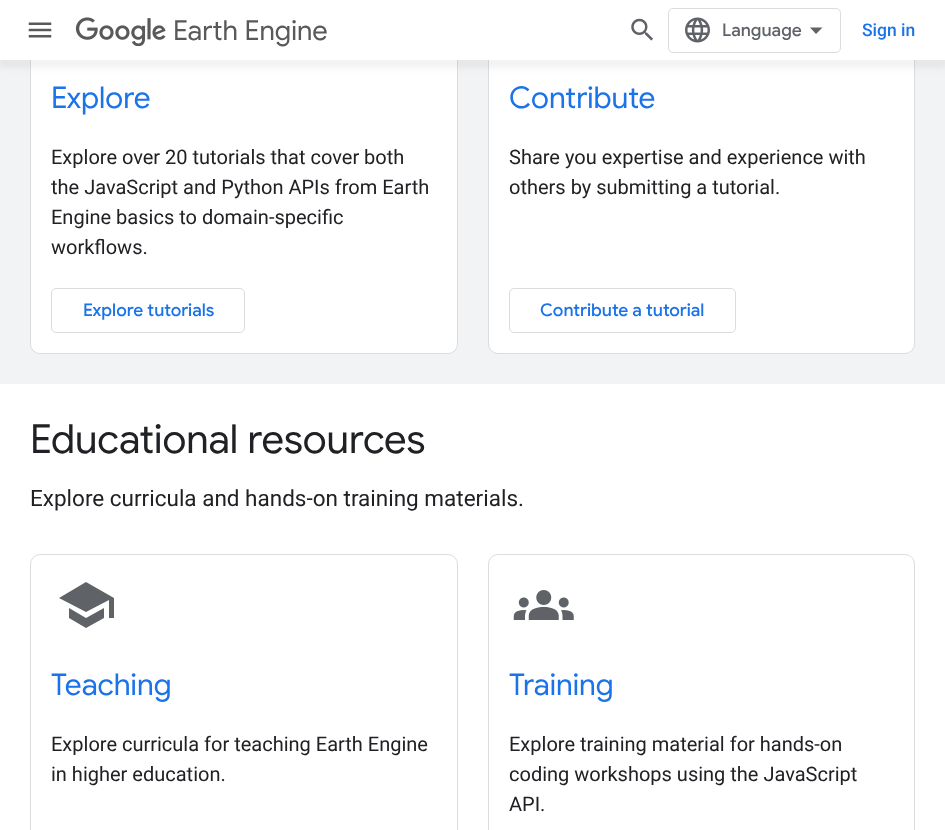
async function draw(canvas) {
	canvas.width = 945;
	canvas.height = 830;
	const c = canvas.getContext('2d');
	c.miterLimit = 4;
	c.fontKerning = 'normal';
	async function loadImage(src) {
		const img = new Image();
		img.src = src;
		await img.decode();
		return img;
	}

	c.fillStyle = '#fff';
	c.fillRect(0, 0, 945, 830);
	c.fillStyle = '#f1f3f4';
	c.fillRect(0, 60, 945, 324);
	c.fillStyle = '#fff';
	c.beginPath();
	c.roundRect(30.5, -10.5, 427, 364, 9.5);
	c.fill();
	c.strokeStyle = '#dadce0';
	c.stroke();
	c.beginPath();
	c.roundRect(488.5, -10.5, 426, 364, 9.5);
	c.fill();
	c.stroke();
	c.fillStyle = '#3c404326';
	c.filter = 'blur(4px)';
	c.beginPath();
	c.rect(-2, 60, 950, 5);
	c.fill();
	c.filter = 'none';
	c.fillStyle = '#fff';
	c.fillRect(0, 0, 945, 60);
	c.drawImage(await loadImage('img1.png'), 28, 22, 24, 16);
	c.drawImage(await loadImage('img2.png'), 75, 17, 91, 29);
	c.font = '27.5px Google Sans';
	c.fillStyle = '#595959';
	c.fillText('Earth Engine', 173, 40);
	c.drawImage(await loadImage('img3.png'), 631, 18, 22, 23);
	c.beginPath();
	c.roundRect(668.5, 8.5, 172, 44, 4.5);
	c.stroke();
	c.drawImage(await loadImage('img4.png'), 685, 17, 25, 26);
	c.font = '500 17.5px Google Sans';
	c.fillStyle = '#5f6368';
	c.fillText('Language', 722, 36);
	c.beginPath();
	c.moveTo(816, 34);
	c.lineTo(810, 27.5);
	c.lineTo(822.5, 27.5);
	c.closePath();
	c.fill();
	c.font = '500 17.5px Roboto';
	c.fillStyle = '#1a73e8';
	c.fillText('Sign in', 862, 36);
	c.font = '30px Google Sans';
	c.fillText('Explore', 51, 108);
	c.font = '20px Roboto';
	c.fillStyle = '#202124';
	for (const [text, x, y] of [
		['Explore over 20 tutorials that cover both', 51, 164],
		['the JavaScript and Python APIs from Earth', 51, 194],
		['Engine basics to domain-specific', 51, 224],
		['workflows.', 51, 254],
	]) {
		c.fillText(text, x, y);
	}
	c.beginPath();
	c.roundRect(51.5, 288.5, 193, 44, 4.5);
	c.stroke();
	c.font = '500 17.5px Google Sans';
	c.fillStyle = '#1a73e8';
	c.fillText('Explore tutorials', 83, 316);
	c.font = '30px Google Sans';
	c.fillText('Contribute', 509, 108);
	c.font = '20px Roboto';
	c.fillStyle = '#202124';
	c.fillText('Share you expertise and experience with', 509, 164);
	c.fillText('others by submitting a tutorial.', 509, 194);
	c.beginPath();
	c.roundRect(509.5, 288.5, 226, 44, 4.5);
	c.stroke();
	c.font = '500 17.5px Google Sans';
	c.fillStyle = '#1a73e8';
	c.fillText('Contribute a tutorial', 540, 316);
	c.font = '40px Google Sans';
	c.fillStyle = '#202124';
	c.fillText('Educational resources', 30, 453);
	c.font = '22.5px Roboto';
	c.fillText('Explore curricula and hands-on training materials.', 30, 506);
	c.beginPath();
	c.roundRect(30.5, 554.5, 427, 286, 9.5);
	c.stroke();
	c.fillStyle = '#5f6368';
	c.beginPath();
	c.moveTo(86, 582);
	c.lineTo(114, 598);
	c.lineTo(114, 618);
	c.lineTo(109, 618);
	c.lineTo(109, 600);
	c.lineTo(86, 612);
	c.lineTo(59, 598);
	c.closePath();
	c.moveTo(69, 608);
	c.lineTo(86, 618);
	c.lineTo(104, 608);
	c.lineTo(104, 618);
	c.lineTo(86, 628);
	c.lineTo(69, 618);
	c.closePath();
	c.fill();
	c.font = '30px Google Sans';
	c.fillStyle = '#1a73e8';
	c.fillText('Teaching', 51, 695);
	c.font = '20px Roboto';
	c.fillStyle = '#202124';
	c.fillText('Explore curricula for teaching Earth Engine', 51, 751);
	c.fillText('in higher education.', 51, 781);
	c.beginPath();
	c.roundRect(488.5, 554.5, 426, 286, 9.5);
	c.stroke();
	c.drawImage(await loadImage('img5.png'), 513, 590, 61, 30);
	c.font = '30px Google Sans';
	c.fillStyle = '#1a73e8';
	c.fillText('Training', 509, 695);
	c.font = '20px Roboto';
	c.fillStyle = '#202124';
	for (const [text, x, y] of [
		['Explore training material for hands-on', 509, 751],
		['coding workshops using the JavaScript', 509, 781],
		['API.', 509, 811],
	]) {
		c.fillText(text, x, y);
	}
}

draw(document.querySelector('canvas'));
